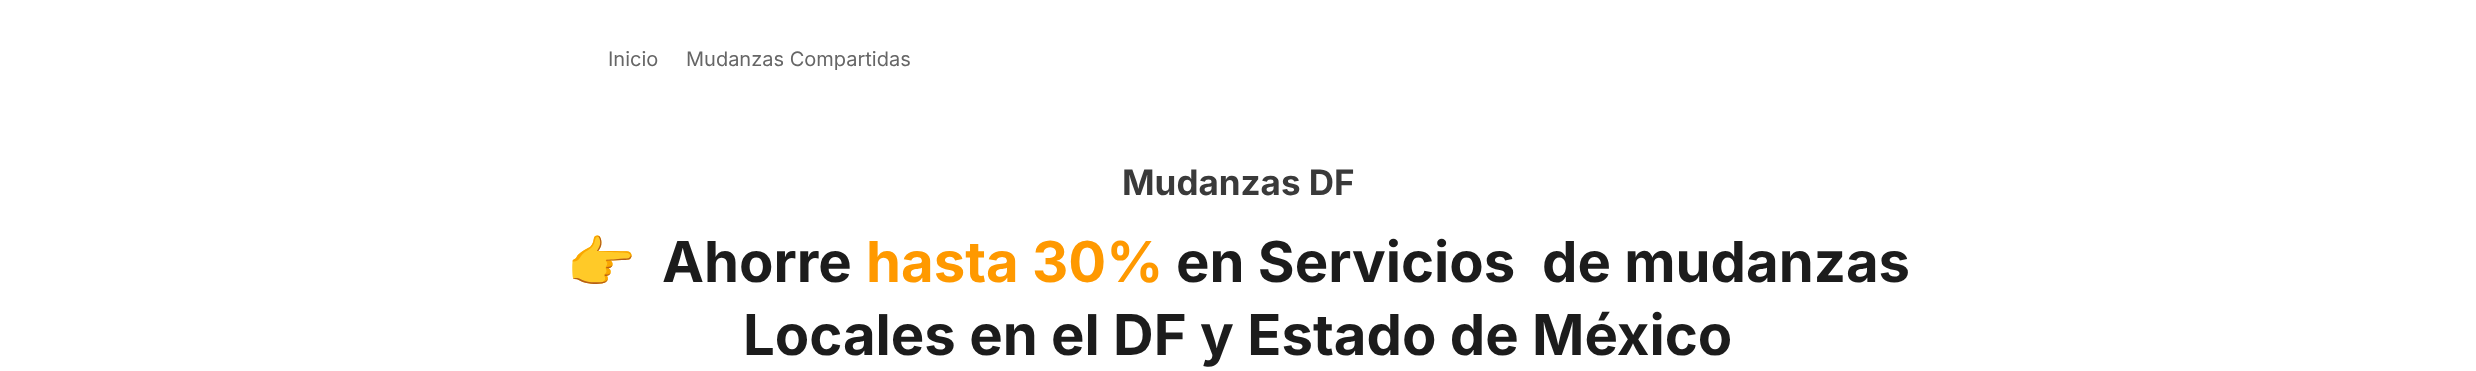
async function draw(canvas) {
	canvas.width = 2476;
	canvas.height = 371;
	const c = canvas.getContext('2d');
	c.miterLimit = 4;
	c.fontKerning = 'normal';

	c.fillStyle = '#fff';
	c.fillRect(0, 0, 2476, 371);
	c.font = '20px Inter';
	c.fillStyle = '#666';
	c.fillText('Inicio', 608, 66);
	c.fillText('Mudanzas Compartidas', 686, 66);
	c.font = 'bold 35px Inter';
	c.fillStyle = '#3a3a3a';
	c.fillText('Mudanzas DF', 1122, 195);
	c.font = 'bold 56.25px Noto Color Emoji';
	c.fillStyle = '#1c1c1c';
	c.fillText('👉', 566, 282);
	c.font = 'bold 56.25px Inter';
	c.fillText('Ahorre', 662, 282);
	c.fillStyle = '#f90';
	c.fillText('hasta 30%', 866, 282);
	c.fillStyle = '#1c1c1c';
	c.fillText('en Servicios  de mudanzas', 1176, 282);
	c.fillText('Locales en el DF y Estado de México', 743, 355);
}

draw(document.querySelector('canvas'));
